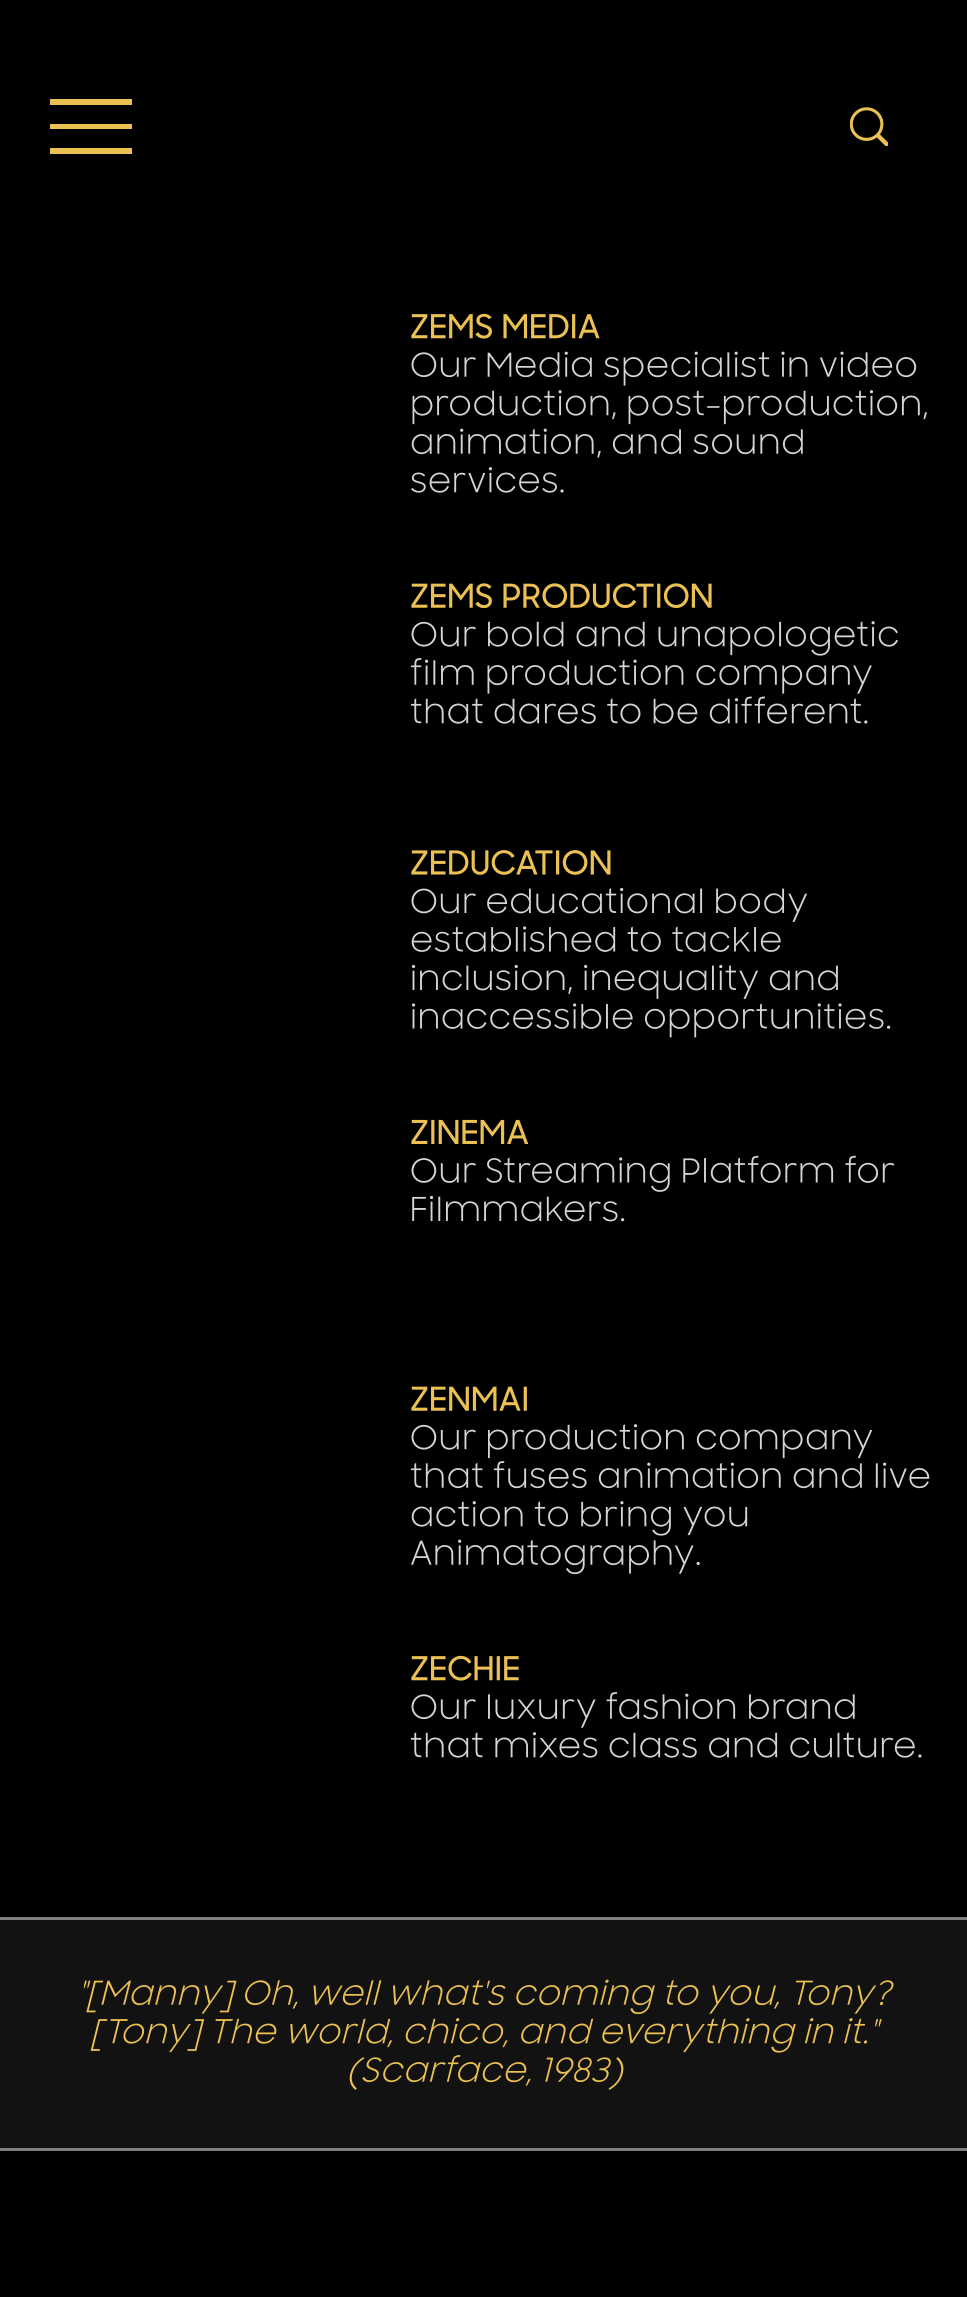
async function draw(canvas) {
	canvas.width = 967;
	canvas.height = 2297;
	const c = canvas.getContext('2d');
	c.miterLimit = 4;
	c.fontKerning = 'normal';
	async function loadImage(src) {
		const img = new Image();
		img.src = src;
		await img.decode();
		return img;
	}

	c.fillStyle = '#000';
	c.fillRect(0, 0, 967, 2297);
	for (const [x, y, w, h, color] of [
		[50, 99, 82, 6, '#ecc153'],
		[50, 124, 82, 5, '#ecc153'],
		[50, 148, 82, 6, '#ecc153'],
	]) {
		c.fillStyle = color;
		c.fillRect(x, y, w, h);
	}
	c.drawImage(await loadImage('img1.png'), 850, 107, 38, 39);
	c.drawImage(await loadImage('img2.png'), 411, 313, 189, 26);
	c.drawImage(await loadImage('img3.png'), 411, 351, 506, 35);
	c.drawImage(await loadImage('img4.png'), 412, 390, 515, 35);
	c.drawImage(await loadImage('img5.png'), 411, 428, 392, 30);
	c.drawImage(await loadImage('img6.png'), 411, 467, 153, 26);
	c.drawImage(await loadImage('img7.png'), 411, 583, 301, 26);
	c.drawImage(await loadImage('img8.png'), 411, 621, 487, 35);
	c.drawImage(await loadImage('img9.png'), 411, 658, 461, 36);
	c.drawImage(await loadImage('img10.png'), 410, 696, 458, 28);
	c.drawImage(await loadImage('img11.png'), 411, 850, 200, 25);
	c.drawImage(await loadImage('img12.png'), 411, 887, 396, 35);
	c.drawImage(await loadImage('img13.png'), 411, 926, 370, 26);
	c.drawImage(await loadImage('img14.png'), 411, 964, 427, 35);
	c.drawImage(await loadImage('img15.png'), 411, 1003, 480, 35);
	c.drawImage(await loadImage('img16.png'), 411, 1119, 118, 25);
	c.drawImage(await loadImage('img17.png'), 411, 1155, 484, 37);
	c.drawImage(await loadImage('img18.png'), 412, 1195, 213, 27);
	c.drawImage(await loadImage('img19.png'), 411, 1386, 116, 25);
	c.drawImage(await loadImage('img20.png'), 411, 1424, 462, 35);
	c.drawImage(await loadImage('img21.png'), 410, 1461, 520, 28);
	c.drawImage(await loadImage('img22.png'), 411, 1501, 337, 35);
	c.drawImage(await loadImage('img23.png'), 411, 1539, 289, 36);
	c.drawImage(await loadImage('img24.png'), 411, 1655, 108, 26);
	c.drawImage(await loadImage('img25.png'), 411, 1692, 444, 36);
	c.drawImage(await loadImage('img26.png'), 410, 1732, 512, 26);
	c.fillStyle = '#808080';
	c.fillRect(0, 1917, 967, 3);
	c.fillStyle = '#121212';
	c.fillRect(0, 1920, 967, 228);
	c.drawImage(await loadImage('img27.png'), 83, 1979, 811, 36);
	c.drawImage(await loadImage('img28.png'), 90, 2018, 792, 35);
	c.drawImage(await loadImage('img29.png'), 349, 2055, 275, 35);
	c.fillStyle = '#808080';
	c.fillRect(0, 2148, 967, 3);
}

draw(document.querySelector('canvas'));
